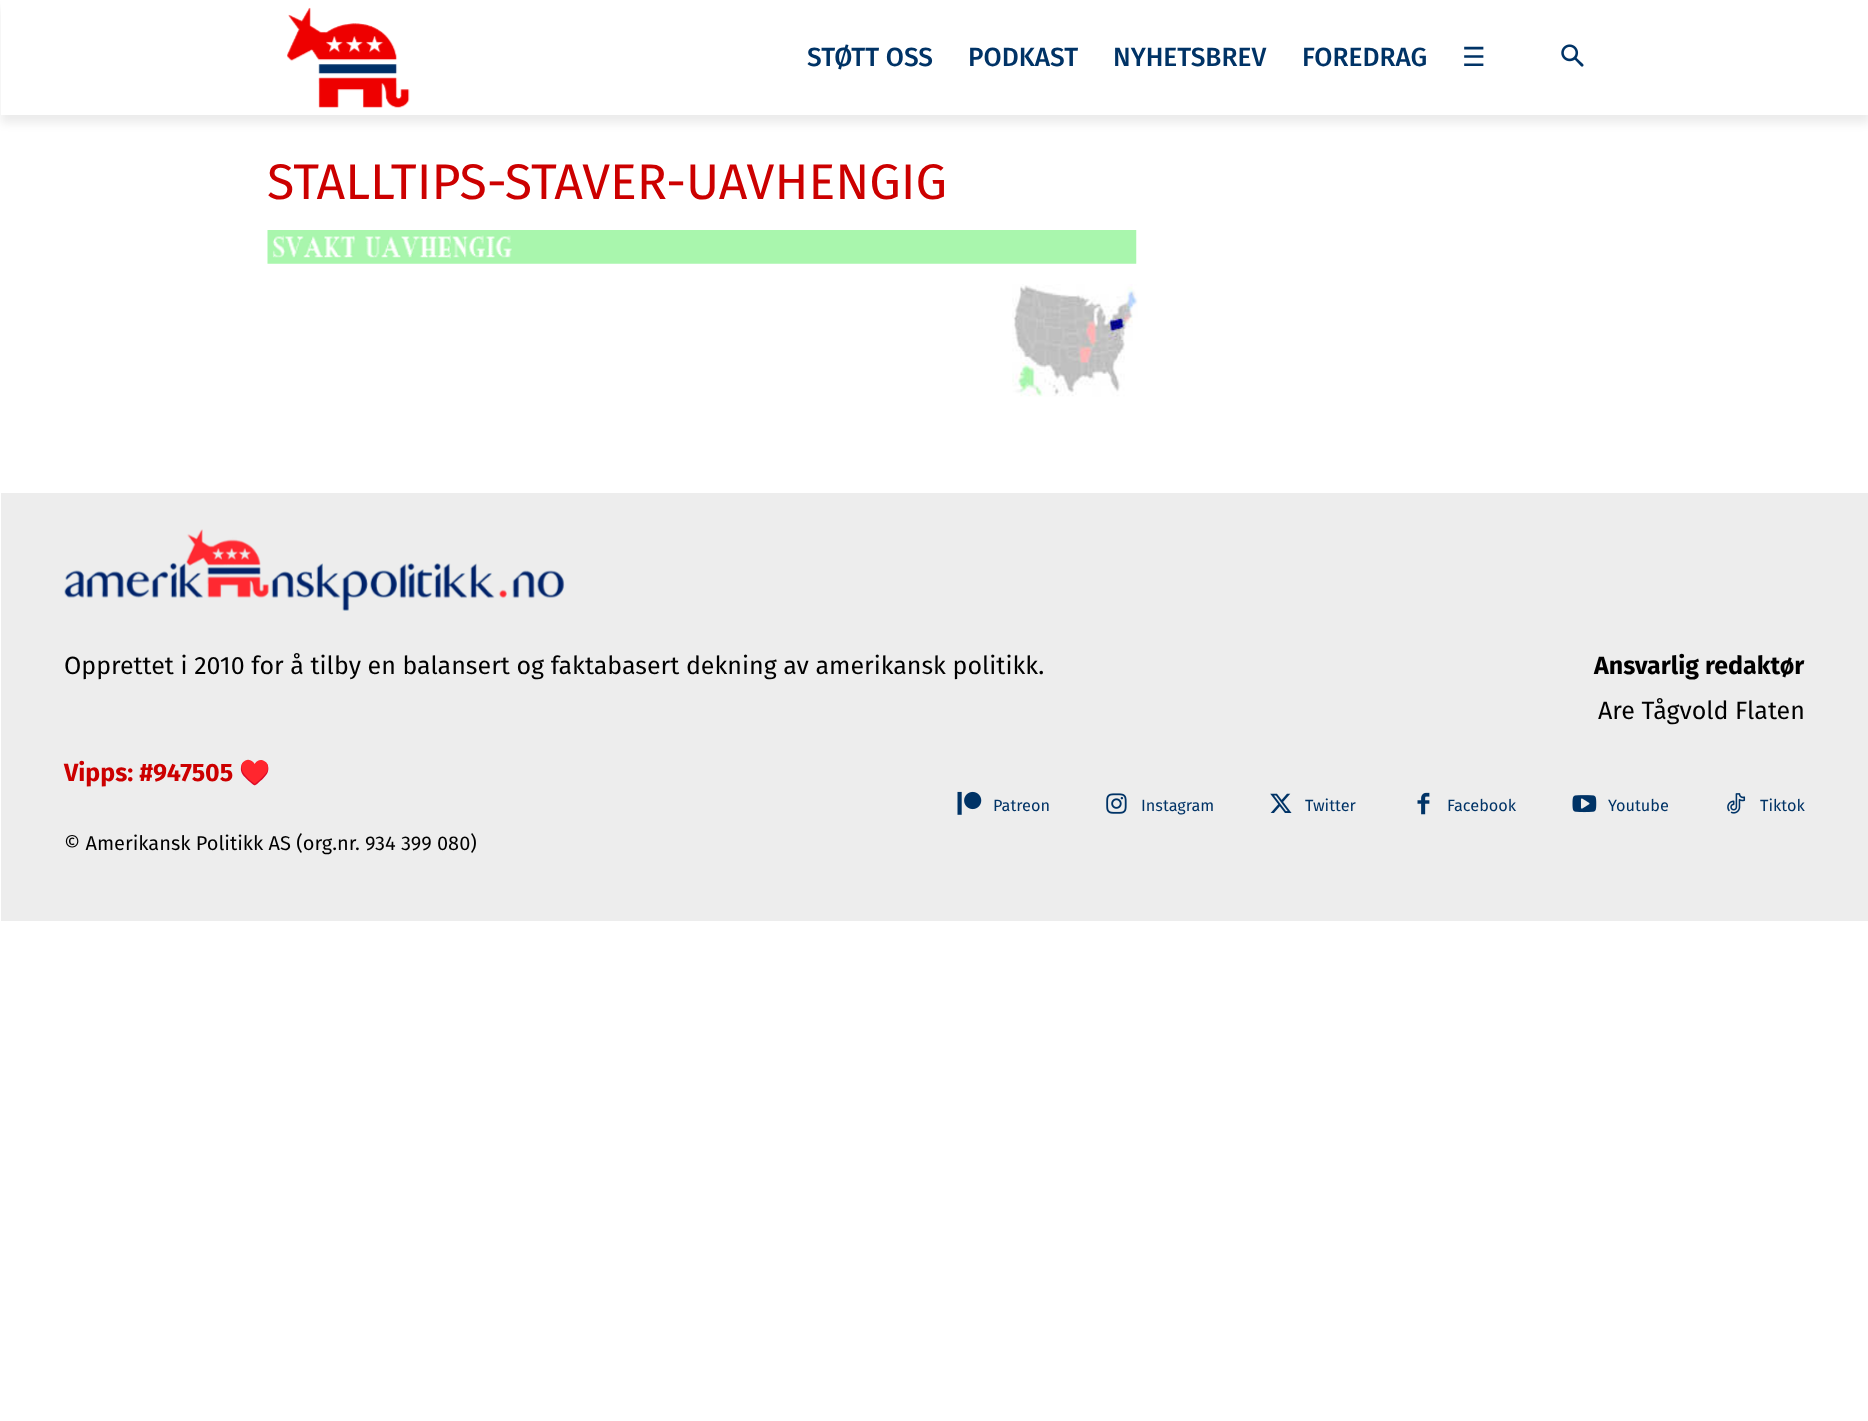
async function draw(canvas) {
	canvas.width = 1868;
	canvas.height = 1421;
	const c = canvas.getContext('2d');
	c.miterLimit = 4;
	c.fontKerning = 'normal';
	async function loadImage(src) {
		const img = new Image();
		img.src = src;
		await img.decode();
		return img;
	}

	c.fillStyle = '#fff';
	c.fillRect(0, 0, 1868, 1421);
	c.drawImage(await loadImage('img1.png'), 287, 7, 123, 101);
	c.save();
	c.beginPath();
	c.moveTo(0, 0);
	c.lineTo(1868, 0);
	c.lineTo(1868, 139);
	c.lineTo(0, 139);
	c.closePath();
	c.moveTo(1, 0);
	c.lineTo(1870, 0);
	c.lineTo(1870, 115);
	c.lineTo(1, 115);
	c.closePath();
	c.clip('evenodd');
	c.fillStyle = '#00000014';
	c.filter = 'blur(5px)';
	c.beginPath();
	c.rect(1, 8, 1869, 115);
	c.fill();
	c.filter = 'none';
	c.restore();
	c.font = '500 26.25px Fira Sans';
	c.fillStyle = '#036';
	for (const [text, x, y] of [
		['STØTT OSS', 807, 66],
		['PODKAST', 968, 66],
		['NYHETSBREV', 1113, 66],
		['FOREDRAG', 1302, 66],
	]) {
		c.fillText(text, x, y);
	}
	c.font = '26.25px DejaVu Sans';
	c.fillText('☰', 1462, 66);
	c.drawImage(await loadImage('img2.png'), 1561, 44, 23, 23);
	c.font = '50px Fira Sans';
	c.fillStyle = '#c00';
	c.fillText('STALLTIPS-STAVER-UAVHENGIG', 267, 199);
	c.drawImage(await loadImage('img3.png'), 267, 230, 870, 34);
	c.drawImage(await loadImage('img4.png'), 1012, 284, 126, 113);
	c.fillStyle = '#ededed';
	c.fillRect(1, 493, 1867, 428);
	c.drawImage(await loadImage('img5.png'), 64, 529, 501, 82);
	c.font = '25px Fira Sans';
	c.fillStyle = '#000';
	c.fillText('Opprettet i 2010 for å tilby en balansert og faktabasert dekning av amerikansk politikk.', 64, 674);
	c.font = 'bold 25px Fira Sans';
	c.fillText('Ansvarlig redaktør', 1594, 674);
	c.font = '25px Fira Sans';
	c.fillText('Are Tågvold Flaten', 1598, 719);
	c.font = 'bold 25px Fira Sans';
	c.fillStyle = '#c00';
	c.fillText('Vipps: #947505', 64, 781);
	c.font = 'bold 25px Noto Color Emoji';
	c.fillText('♥️', 239, 781);
	c.font = '20px Fira Sans';
	c.fillStyle = '#000';
	c.fillText('© Amerikansk Politikk AS (org.nr. 934 399 080)', 64, 850);
	c.drawImage(await loadImage('img6.png'), 957, 791, 25, 24);
	c.font = '16.25px Fira Sans';
	c.fillStyle = '#036';
	c.fillText('Patreon', 993, 811);
	c.drawImage(await loadImage('img7.png'), 1106, 793, 21, 21);
	c.fillText('Instagram', 1141, 811);
	c.drawImage(await loadImage('img8.png'), 1270, 793, 22, 20);
	c.fillText('Twitter', 1305, 811);
	c.drawImage(await loadImage('img9.png'), 1417, 792, 13, 23);
	c.fillText('Facebook', 1447, 811);
	c.drawImage(await loadImage('img10.png'), 1572, 795, 25, 18);
	c.fillText('Youtube', 1608, 811);
	c.drawImage(await loadImage('img11.png'), 1727, 793, 19, 21);
	c.fillText('Tiktok', 1760, 811);
}

draw(document.querySelector('canvas'));
